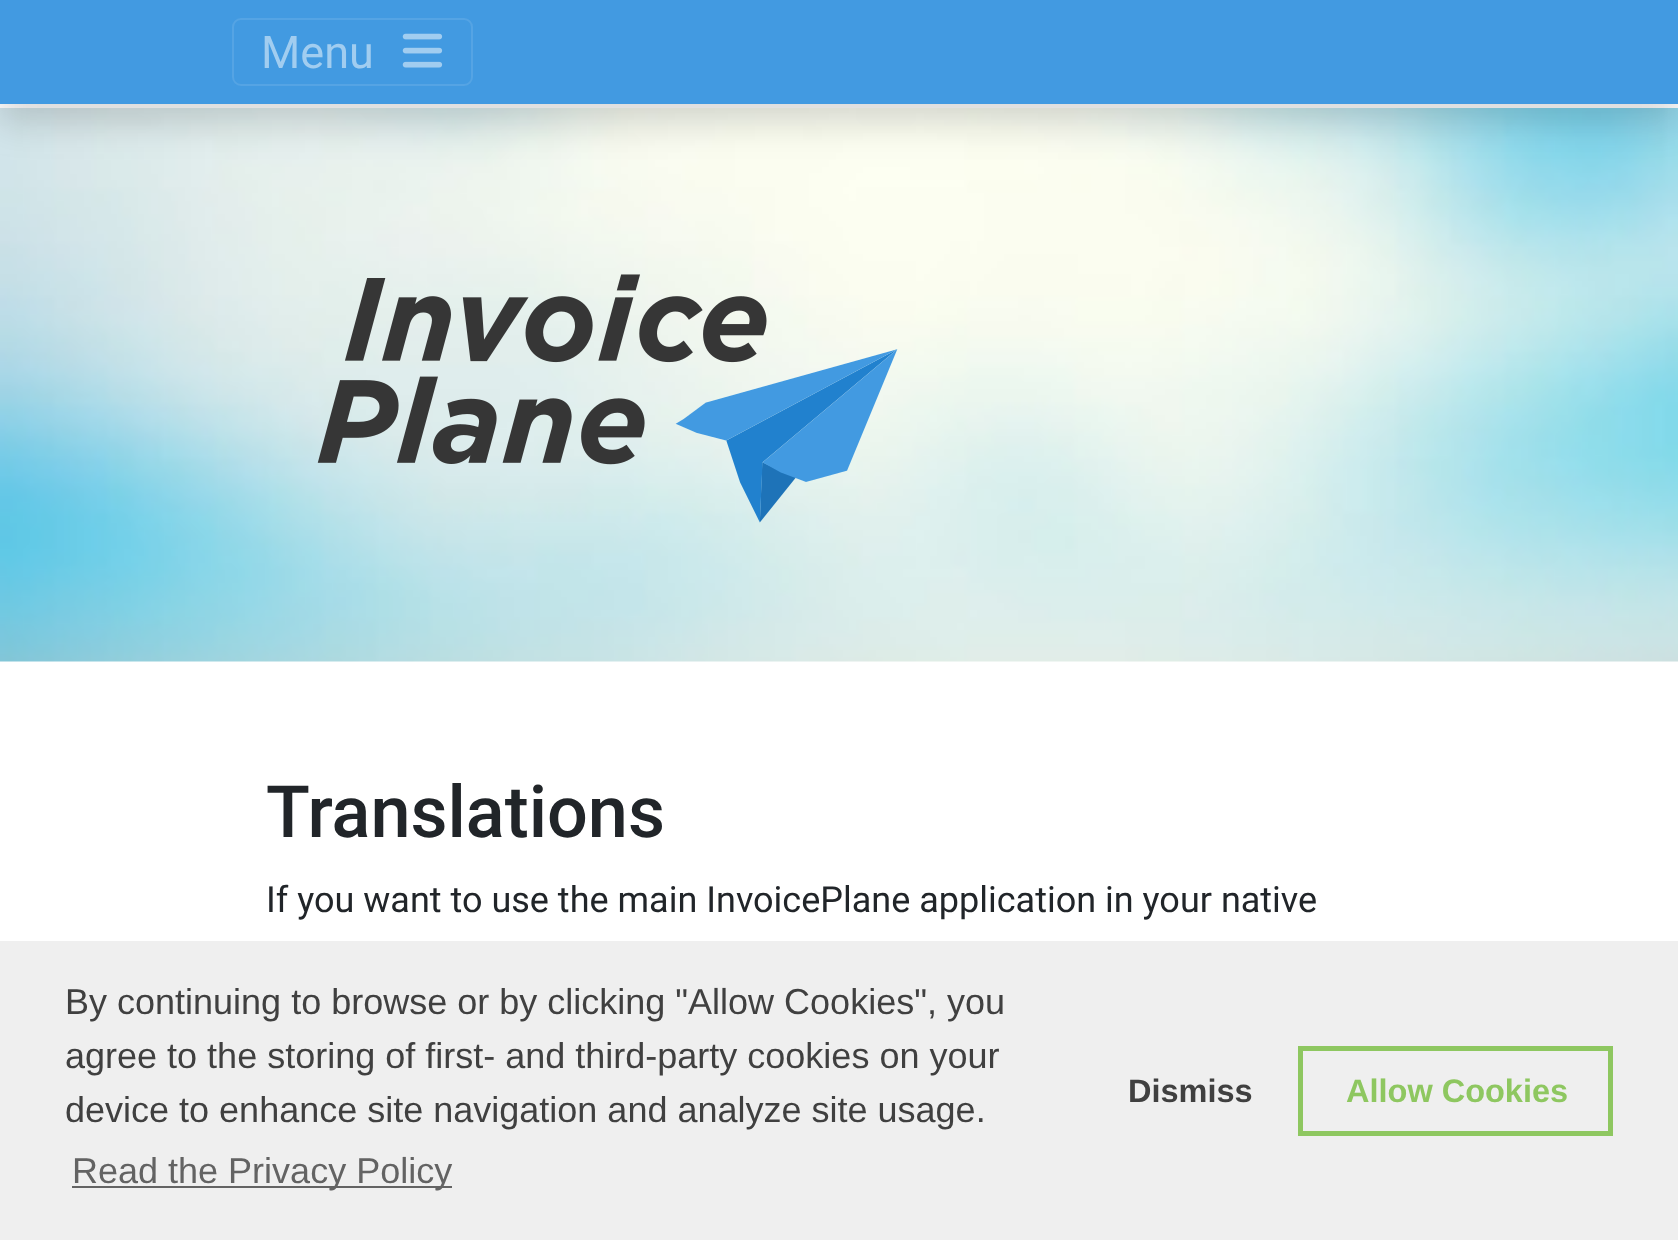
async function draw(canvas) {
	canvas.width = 1678;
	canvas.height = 1240;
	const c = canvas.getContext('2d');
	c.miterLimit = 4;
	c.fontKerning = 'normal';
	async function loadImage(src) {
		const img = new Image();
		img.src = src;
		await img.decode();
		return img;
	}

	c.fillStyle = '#fff';
	c.fillRect(0, 0, 1678, 1240);
	c.drawImage(await loadImage('img2.png'), 0, 108, 1678, 554);
	c.fillStyle = '#00000026';
	c.filter = 'blur(18px)';
	c.beginPath();
	c.rect(0, 18, 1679, 104);
	c.fill();
	c.filter = 'none';
	c.fillStyle = '#429ae1';
	c.fillRect(0, 0, 1678, 104);
	c.beginPath();
	c.roundRect(233, 19, 239, 66, 8);
	c.strokeStyle = '#55a4e4';
	c.lineWidth = 2;
	c.stroke();
	c.font = '45px Roboto';
	c.fillStyle = '#a1cdf0';
	c.fillText('Menu', 261, 68);
	c.drawImage(await loadImage('img1.png'), 402, 33, 41, 35);
	c.drawImage(await loadImage('img3.png'), 317, 274, 581, 249);
	c.font = '500 72px Roboto';
	c.fillStyle = '#212529';
	c.fillText('Translations', 266, 837);
	c.font = '36px Roboto';
	c.fillText('If you want to use the main InvoicePlane application in your native', 266, 912);
	c.fillStyle = '#efefef';
	c.fillRect(0, 941, 1678, 299);
	c.font = '36px Liberation Sans';
	c.fillStyle = '#404040';
	for (const [text, x, y] of [
		['By continuing to browse or by clicking "Allow Cookies", you', 65, 1014],
		['agree to the storing of first- and third-party cookies on your', 65, 1068],
		['device to enhance site navigation and analyze site usage.', 65, 1122],
	]) {
		c.fillText(text, x, y);
	}
	c.fillStyle = '#636363';
	c.fillRect(72, 1186, 380, 2);
	c.fillText('Read the Privacy Policy', 72, 1183);
	c.font = 'bold 32.5px Liberation Sans';
	c.fillStyle = '#404040';
	c.fillText('Dismiss', 1128, 1102);
	c.strokeStyle = '#8ec760';
	c.lineWidth = 5;
	c.strokeRect(1300.5, 1048.5, 310, 85);
	c.fillStyle = '#8ec760';
	c.fillText('Allow Cookies', 1346, 1102);
}

draw(document.querySelector('canvas'));
